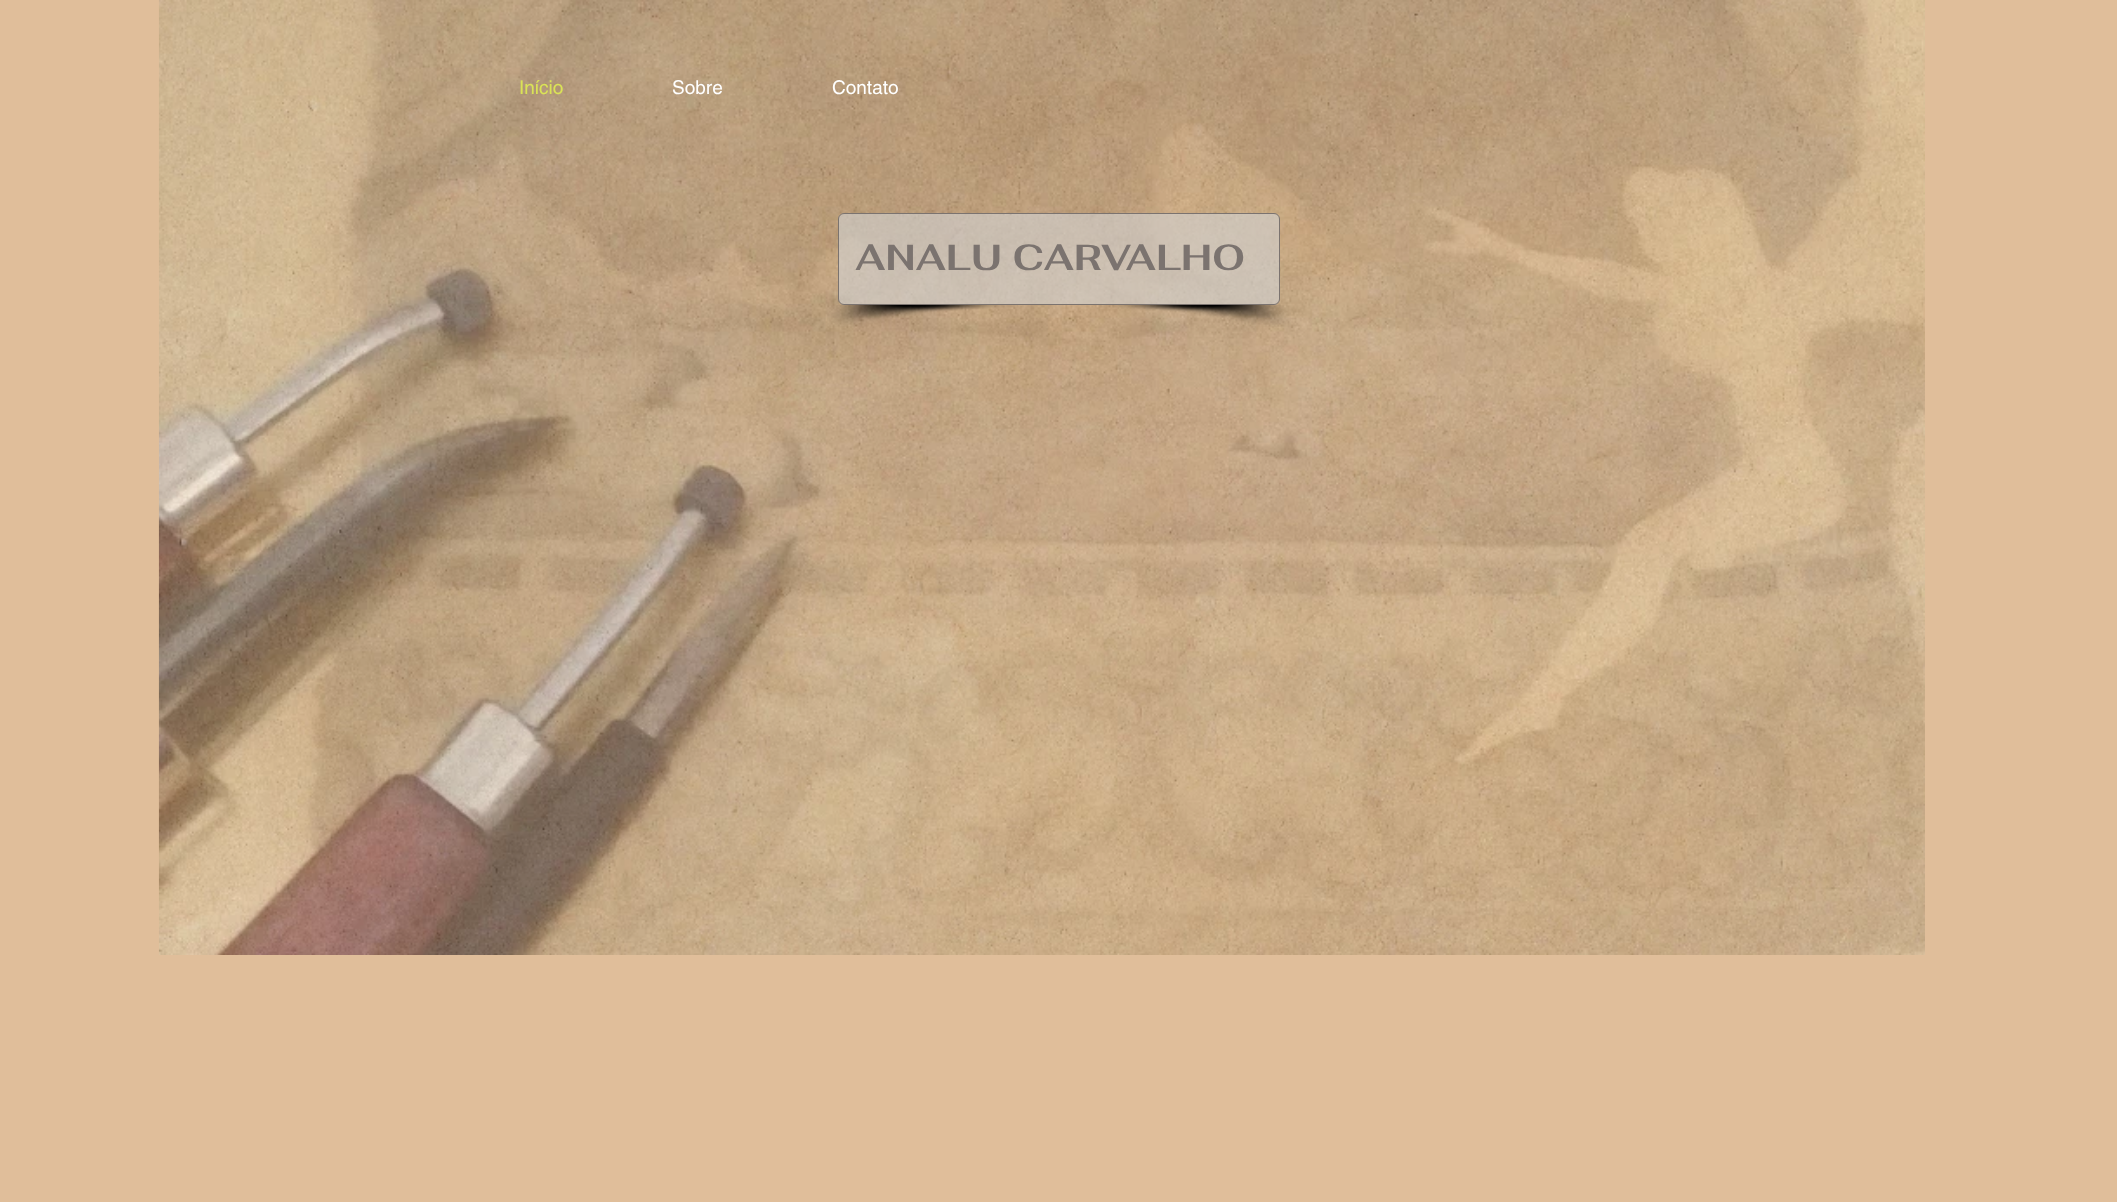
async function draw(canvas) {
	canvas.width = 2117;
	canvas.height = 1202;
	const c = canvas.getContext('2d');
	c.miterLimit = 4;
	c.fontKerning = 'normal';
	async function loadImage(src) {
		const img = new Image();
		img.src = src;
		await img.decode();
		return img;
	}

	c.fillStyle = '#e0be9a';
	c.fillRect(0, 0, 2117, 1202);
	c.drawImage(await loadImage('img1.png'), 158, 0, 1767, 955);
	c.font = '19px helvetica';
	c.fillStyle = '#dae356';
	c.fillText('Início', 519, 94);
	c.fillStyle = '#fff';
	c.fillText('Sobre', 672, 94);
	c.fillText('Contato', 832, 94);
	c.fillStyle = '#d2d2d29e';
	c.beginPath();
	c.roundRect(838.5, 213.5, 441, 91, 5.5);
	c.fill();
	c.strokeStyle = '#7b736f';
	c.stroke();
	c.font = 'bold 36.25px Fahkwang';
	c.fillStyle = '#7b736f';
	c.fillText('ANALU CARVALHO', 855, 270);
	c.drawImage(await loadImage('img2.png'), 827, 305, 191, 22);
	c.drawImage(await loadImage('img3.png'), 1099, 305, 192, 22);
}

draw(document.querySelector('canvas'));
